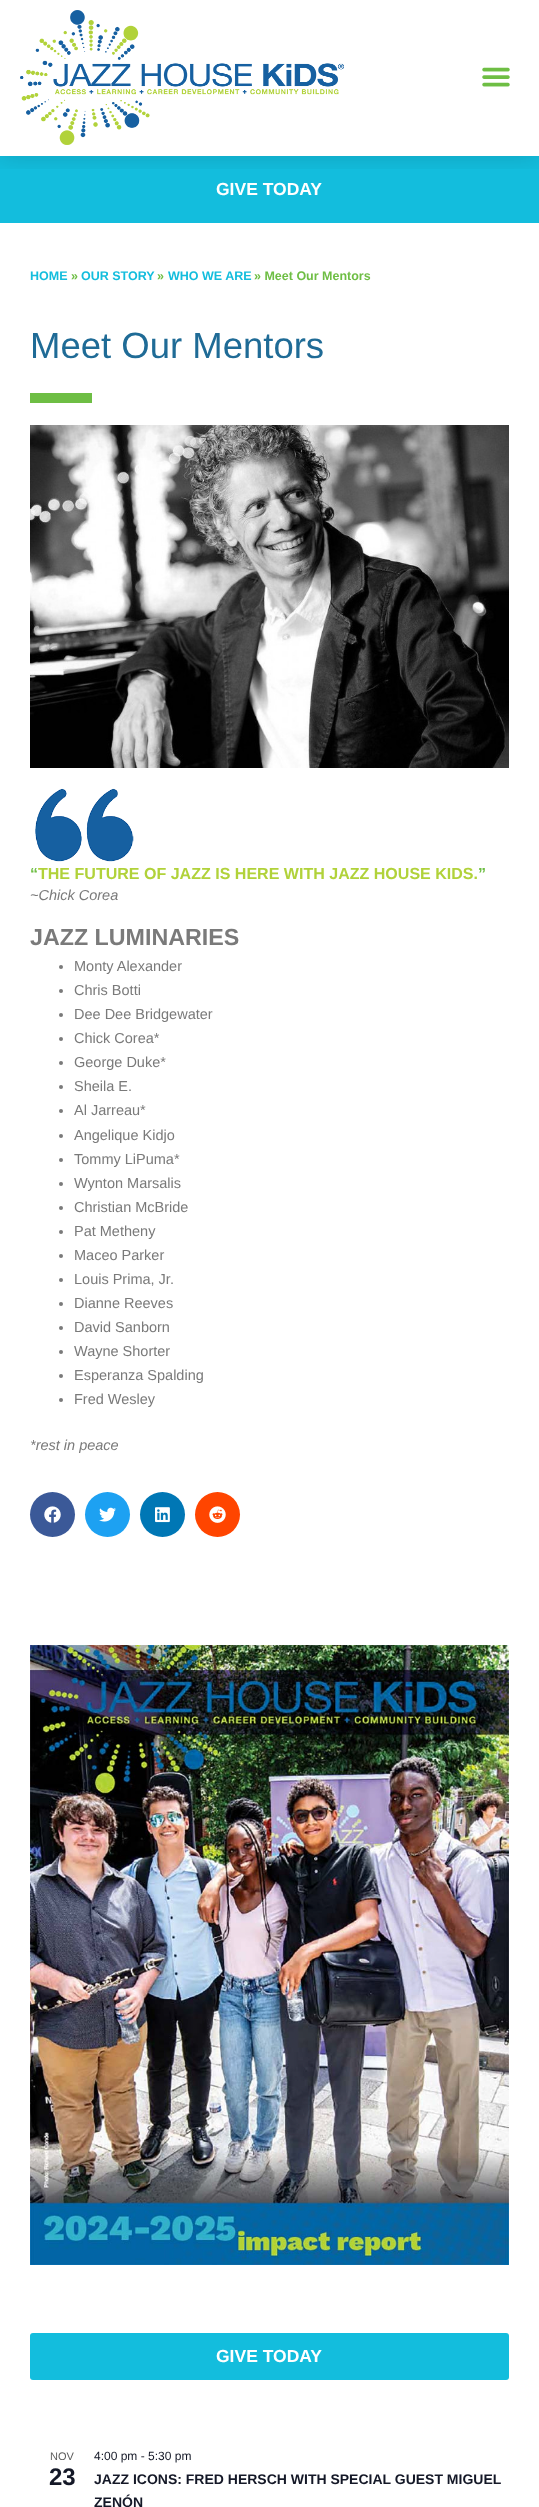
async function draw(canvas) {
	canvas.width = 539;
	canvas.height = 2507;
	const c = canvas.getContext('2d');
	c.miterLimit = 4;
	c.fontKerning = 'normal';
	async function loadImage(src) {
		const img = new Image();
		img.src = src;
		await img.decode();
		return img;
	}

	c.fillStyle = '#fff';
	c.fillRect(0, 0, 539, 2507);
	c.fillStyle = '#13bddd';
	c.fillRect(0, 156, 539, 67);
	c.save();
	c.beginPath();
	c.rect(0, 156, 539, 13);
	c.clip();
	c.fillStyle = '#00000026';
	c.filter = 'blur(12px)';
	c.beginPath();
	c.rect(0, 0, 539, 156);
	c.fill();
	c.filter = 'none';
	c.restore();
	c.drawImage(await loadImage('img1.png'), 20, 10, 324, 135);
	c.drawImage(await loadImage('img2.png'), 482, 67, 28, 20);
	c.font = 'bold 17.5px Liberation Sans';
	c.fillStyle = '#fff';
	c.fillText('GIVE TODAY', 216, 195);
	c.font = 'bold 12.5px Liberation Sans';
	c.fillStyle = '#13bddd';
	c.fillText('HOME', 30, 280);
	c.fillStyle = '#6ebe44';
	c.fillText('»', 71, 280);
	c.fillStyle = '#13bddd';
	c.fillText('OUR STORY', 81, 280);
	c.fillStyle = '#6ebe44';
	c.fillText('»', 157, 280);
	c.fillStyle = '#13bddd';
	c.fillText('WHO WE ARE', 168, 280);
	c.fillStyle = '#6ebe44';
	c.fillText('» Meet Our Mentors', 254, 280);
	c.font = '36.5px Liberation Sans';
	c.fillStyle = '#1f6b96';
	c.fillText('Meet Our Mentors', 30, 358);
	c.fillStyle = '#6ebe44';
	c.fillRect(30, 393, 62, 10);
	c.drawImage(await loadImage('img3.png'), 30, 425, 479, 343);
	c.drawImage(await loadImage('img4.png'), 35, 788, 99, 74);
	c.font = 'bold 16.05px Liberation Sans';
	c.fillText('“', 30, 879);
	c.fillStyle = '#b1d23a';
	c.fillText('THE FUTURE OF JAZZ IS HERE WITH JAZZ HOUSE KIDS.', 38, 879);
	c.fillStyle = '#6ebe44';
	c.fillText('”', 478, 879);
	c.font = 'italic 14.5px Liberation Sans';
	c.fillStyle = '#7a7a7a';
	c.fillText('~Chick Corea', 30, 900);
	c.font = 'bold 23.25px Liberation Sans';
	c.fillText('JAZZ LUMINARIES', 30, 945);
	c.beginPath();
	c.arc(61, 967, 2, 0, 2 * Math.PI);
	c.fill();
	c.font = '14.5px Liberation Sans';
	c.fillText('Monty Alexander', 74, 971);
	c.beginPath();
	c.arc(61, 991, 2, 0, 2 * Math.PI);
	c.fill();
	c.fillText('Chris Botti', 74, 995);
	c.beginPath();
	c.arc(61, 1015, 2, 0, 2 * Math.PI);
	c.fill();
	c.fillText('Dee Dee Bridgewater', 74, 1019);
	c.beginPath();
	c.arc(61, 1039, 2, 0, 2 * Math.PI);
	c.fill();
	c.fillText('Chick Corea*', 74, 1043);
	c.beginPath();
	c.arc(61, 1063, 2, 0, 2 * Math.PI);
	c.fill();
	c.fillText('George Duke*', 74, 1067);
	c.beginPath();
	c.arc(61, 1087, 2, 0, 2 * Math.PI);
	c.fill();
	c.fillText('Sheila E.', 74, 1091);
	c.beginPath();
	c.arc(61, 1111, 2, 0, 2 * Math.PI);
	c.fill();
	c.fillText('Al Jarreau*', 74, 1115);
	c.beginPath();
	c.arc(61, 1136, 2, 0, 2 * Math.PI);
	c.fill();
	c.fillText('Angelique Kidjo', 74, 1140);
	c.beginPath();
	c.arc(61, 1160, 2, 0, 2 * Math.PI);
	c.fill();
	c.fillText('Tommy LiPuma*', 74, 1164);
	c.beginPath();
	c.arc(61, 1184, 2, 0, 2 * Math.PI);
	c.fill();
	c.fillText('Wynton Marsalis', 74, 1188);
	c.beginPath();
	c.arc(61, 1208, 2, 0, 2 * Math.PI);
	c.fill();
	c.fillText('Christian McBride', 74, 1212);
	c.beginPath();
	c.arc(61, 1232, 2, 0, 2 * Math.PI);
	c.fill();
	c.fillText('Pat Metheny', 74, 1236);
	c.beginPath();
	c.arc(61, 1256, 2, 0, 2 * Math.PI);
	c.fill();
	c.fillText('Maceo Parker', 74, 1260);
	c.beginPath();
	c.arc(61, 1280, 2, 0, 2 * Math.PI);
	c.fill();
	c.fillText('Louis Prima, Jr.', 74, 1284);
	c.beginPath();
	c.arc(61, 1304, 2, 0, 2 * Math.PI);
	c.fill();
	c.fillText('Dianne Reeves', 74, 1308);
	c.beginPath();
	c.arc(61, 1328, 2, 0, 2 * Math.PI);
	c.fill();
	c.fillText('David Sanborn', 74, 1332);
	c.beginPath();
	c.arc(61, 1352, 2, 0, 2 * Math.PI);
	c.fill();
	c.fillText('Wayne Shorter', 74, 1356);
	c.beginPath();
	c.arc(61, 1376, 2, 0, 2 * Math.PI);
	c.fill();
	c.fillText('Esperanza Spalding', 74, 1380);
	c.beginPath();
	c.arc(61, 1400, 2, 0, 2 * Math.PI);
	c.fill();
	c.fillText('Fred Wesley', 74, 1404);
	c.font = 'italic 14.5px Liberation Sans';
	c.fillText('*rest in peace', 30, 1450);
	c.fillStyle = '#3b5998';
	c.beginPath();
	c.arc(52.5, 1514.5, 22.5, 0, 2 * Math.PI);
	c.fill();
	c.drawImage(await loadImage('img5.png'), 44, 1506, 17, 17);
	c.fillStyle = '#1da1f2';
	c.beginPath();
	c.arc(107.5, 1514.5, 22.5, 0, 2 * Math.PI);
	c.fill();
	c.drawImage(await loadImage('img6.png'), 99, 1507, 17, 15);
	c.fillStyle = '#0077b5';
	c.beginPath();
	c.arc(162.5, 1514.5, 22.5, 0, 2 * Math.PI);
	c.fill();
	c.drawImage(await loadImage('img7.png'), 155, 1507, 15, 16);
	c.fillStyle = '#ff4500';
	c.beginPath();
	c.arc(217.5, 1514.5, 22.5, 0, 2 * Math.PI);
	c.fill();
	c.drawImage(await loadImage('img8.png'), 209, 1506, 17, 17);
	c.drawImage(await loadImage('img9.png'), 30, 1645, 479, 620);
	c.fillStyle = '#13bddd';
	c.beginPath();
	c.roundRect(30, 2333, 479, 47, 3);
	c.fill();
	c.font = 'bold 17.5px Liberation Sans';
	c.fillStyle = '#fff';
	c.fillText('GIVE TODAY', 216, 2362);
	c.font = '11px Liberation Sans';
	c.fillStyle = '#5d5d5d';
	c.fillText('NOV', 50, 2460);
	c.font = 'bold 24px Liberation Sans';
	c.fillStyle = '#141827';
	c.fillText('23', 49, 2485);
	c.font = '12px Liberation Sans';
	c.fillText('4:00 pm - 5:30 pm', 94, 2460);
	c.font = 'bold 14px Liberation Sans';
	c.fillText('JAZZ ICONS: FRED HERSCH WITH SPECIAL GUEST MIGUEL', 94, 2484);
	c.fillText('ZENÓN', 94, 2507);
}

draw(document.querySelector('canvas'));
